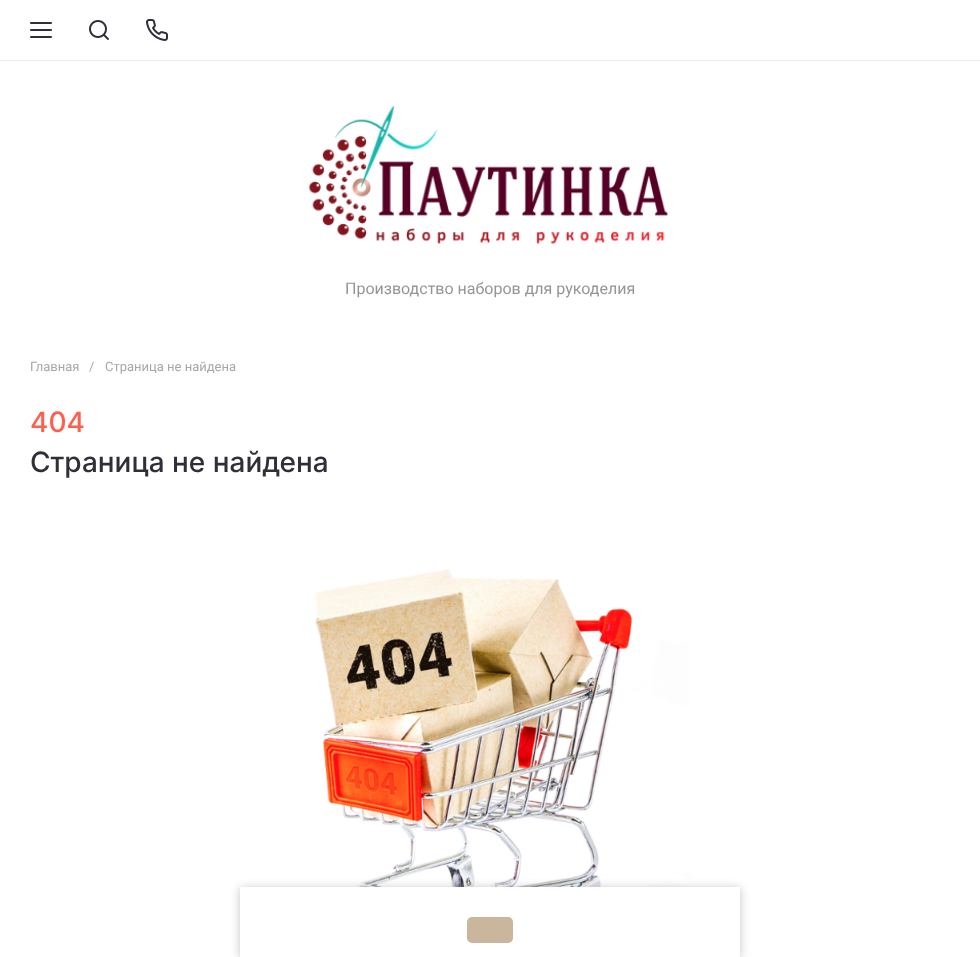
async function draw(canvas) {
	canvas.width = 980;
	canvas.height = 957;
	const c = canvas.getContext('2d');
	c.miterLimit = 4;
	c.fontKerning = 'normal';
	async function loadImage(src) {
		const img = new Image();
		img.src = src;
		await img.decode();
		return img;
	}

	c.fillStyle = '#fff';
	c.fillRect(0, 0, 980, 957);
	c.fillStyle = '#ebebeb';
	c.fillRect(0, 60, 980, 1);
	c.drawImage(await loadImage('img1.png'), 30, 22, 22, 16);
	c.drawImage(await loadImage('img2.png'), 89, 20, 20, 20);
	c.drawImage(await loadImage('img3.png'), 146, 19, 22, 22);
	c.drawImage(await loadImage('img4.png'), 308, 105, 361, 139);
	c.font = '16px Roboto';
	c.fillStyle = '#939598';
	c.fillText('Производство наборов для рукоделия', 345, 294);
	c.font = '13px Roboto';
	c.fillStyle = '#a5a7aa';
	for (const [text, x, y] of [
		['Главная', 30, 371],
		['/', 89, 371],
		['Страница не найдена', 105, 371],
	]) {
		c.fillText(text, x, y);
	}
	c.font = '500 28px Inter';
	c.fillStyle = '#ff604e';
	c.fillText('404', 30, 432);
	c.fillStyle = '#2e2f38';
	c.fillText('Страница не найдена', 30, 472);
	c.drawImage(await loadImage('img5.png'), 313, 569, 377, 318);
	c.fillStyle = '#0000003b';
	c.filter = 'blur(5px)';
	c.beginPath();
	c.rect(240, 888, 500, 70);
	c.fill();
	c.filter = 'none';
	c.fillStyle = '#fff';
	c.fillRect(240, 887, 500, 70);
	c.fillStyle = '#cab69d';
	c.beginPath();
	c.roundRect(467, 917, 46, 26, 5);
	c.fill();
}

draw(document.querySelector('canvas'));
